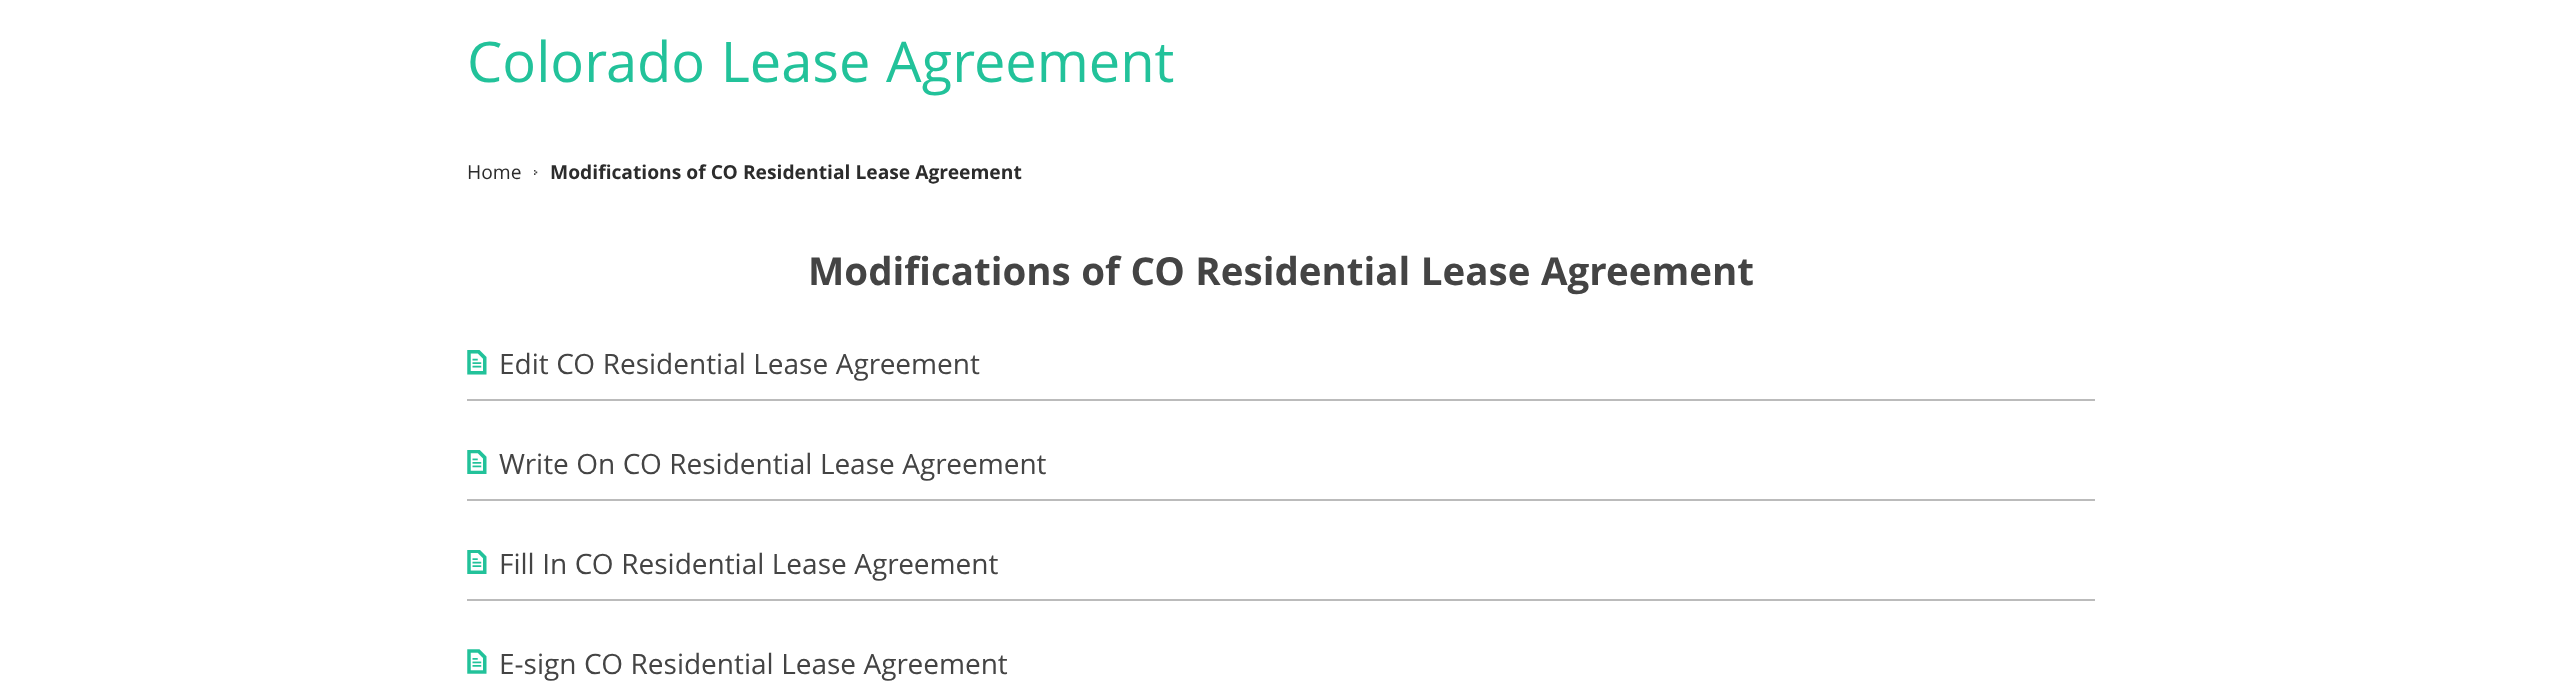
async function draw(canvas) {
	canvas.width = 2562;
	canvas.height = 696;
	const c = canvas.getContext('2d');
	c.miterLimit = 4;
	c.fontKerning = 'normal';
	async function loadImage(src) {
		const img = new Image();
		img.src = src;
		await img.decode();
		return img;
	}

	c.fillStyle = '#fff';
	c.fillRect(0, 0, 2562, 696);
	c.wordSpacing = '1px';
	c.font = '56px Open Sans';
	c.fillStyle = '#22c29a';
	c.fillText('Colorado Lease Agreement', 467, 82);
	c.wordSpacing = '0px';
	c.font = '19.25px Open Sans';
	c.fillStyle = '#2c2c2c';
	c.fillText('Home', 467, 179);
	c.drawImage(await loadImage('img1.png'), 534, 170, 4, 5);
	c.font = 'bold 19.25px Open Sans';
	c.fillText('Modifications of CO Residential Lease Agreement', 550, 179);
	c.wordSpacing = '0.5px';
	c.font = 'bold 38.5px Open Sans';
	c.fillStyle = '#444';
	c.fillText('Modifications of CO Residential Lease Agreement', 808, 285);
	c.fillStyle = '#bbb';
	c.fillRect(467, 399, 1628, 2);
	c.drawImage(await loadImage('img2.png'), 467, 350, 20, 25);
	c.wordSpacing = '0.25px';
	c.font = '28px Open Sans';
	c.fillStyle = '#444';
	c.fillText('Edit CO Residential Lease Agreement', 499, 374);
	c.fillStyle = '#bbb';
	c.fillRect(467, 499, 1628, 2);
	c.drawImage(await loadImage('img3.png'), 467, 450, 20, 24);
	c.fillStyle = '#444';
	c.fillText('Write On CO Residential Lease Agreement', 499, 474);
	c.fillStyle = '#bbb';
	c.fillRect(467, 599, 1628, 2);
	c.drawImage(await loadImage('img4.png'), 467, 550, 20, 24);
	c.fillStyle = '#444';
	c.fillText('Fill In CO Residential Lease Agreement', 499, 574);
	c.drawImage(await loadImage('img5.png'), 467, 649, 20, 25);
	c.fillText('E-sign CO Residential Lease Agreement', 499, 674);
}

draw(document.querySelector('canvas'));
